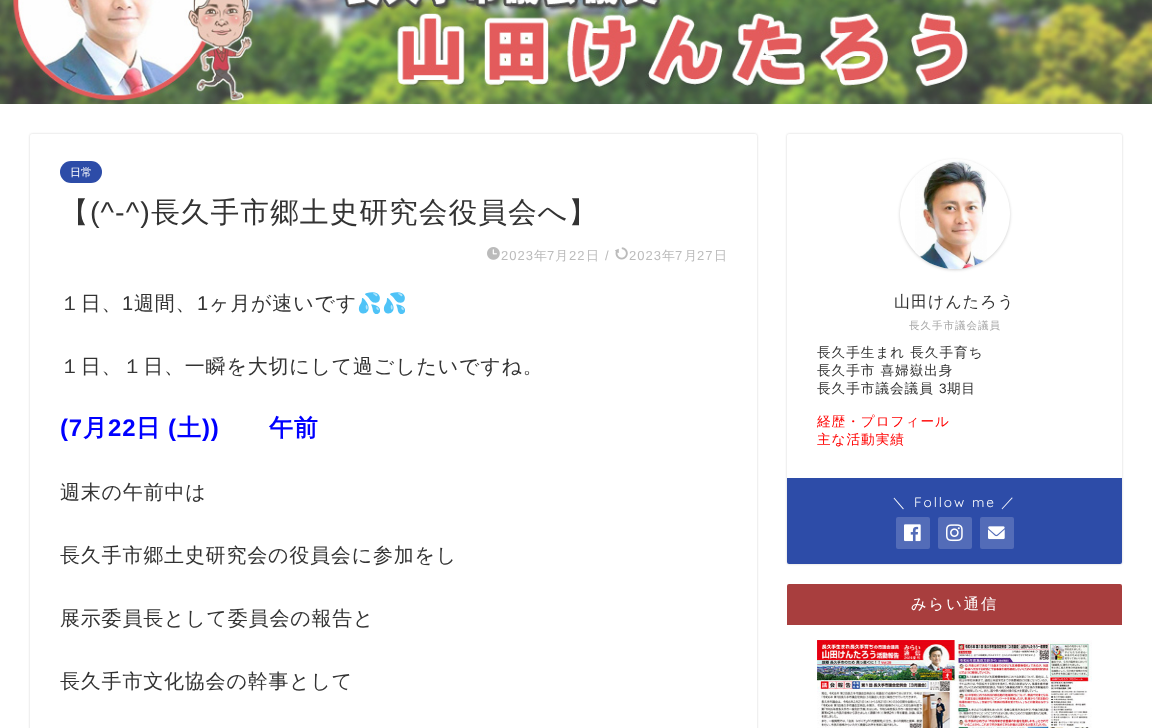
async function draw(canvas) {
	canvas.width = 1152;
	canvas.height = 728;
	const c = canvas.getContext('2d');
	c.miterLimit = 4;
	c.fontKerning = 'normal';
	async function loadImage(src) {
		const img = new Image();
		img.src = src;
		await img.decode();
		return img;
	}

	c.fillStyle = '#fff';
	c.fillRect(0, 0, 1152, 728);
	c.drawImage(await loadImage('img1.png'), 0, 0, 1152, 104);
	c.fillStyle = '#0000002e';
	c.filter = 'blur(1px)';
	c.beginPath();
	c.roundRect(30, 134, 727, 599, 2);
	c.fill();
	c.filter = 'none';
	c.fillStyle = '#fff';
	c.beginPath();
	c.roundRect(30, 134, 727, 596, 2);
	c.fill();
	c.fillStyle = '#2d4ca8';
	c.beginPath();
	c.roundRect(60, 161, 42, 22, 11);
	c.fill();
	c.font = '500 11px WenQuanYi Zen Hei';
	c.fillStyle = '#fff';
	c.fillText('日常', 70, 176);
	c.letterSpacing = '1px';
	c.font = '500 28.75px WenQuanYi Zen Hei';
	c.fillStyle = '#333';
	c.fillText('【', 60, 222);
	c.font = '28.75px Liberation Sans';
	c.fillText('(^-^)', 90, 222);
	c.font = '500 28.75px WenQuanYi Zen Hei';
	c.fillText('長久手市郷土史研究会役員会へ】', 151, 222);
	c.drawImage(await loadImage('img2.png'), 487, 247, 13, 13);
	c.font = '13px Liberation Sans';
	c.fillStyle = '#bbb';
	c.fillText('2023', 501, 260);
	c.font = '500 13px WenQuanYi Zen Hei';
	c.fillText('年', 534, 260);
	c.font = '13px Liberation Sans';
	c.fillText('7', 547, 260);
	c.font = '500 13px WenQuanYi Zen Hei';
	c.fillText('月', 555, 260);
	c.font = '13px Liberation Sans';
	c.fillText('22', 569, 260);
	c.font = '500 13px WenQuanYi Zen Hei';
	c.fillText('日', 586, 260);
	c.font = '13px Liberation Sans';
	c.fillText('/', 605, 260);
	c.drawImage(await loadImage('img3.png'), 615, 247, 13, 13);
	c.fillText('2023', 629, 260);
	c.font = '500 13px WenQuanYi Zen Hei';
	c.fillText('年', 662, 260);
	c.font = '13px Liberation Sans';
	c.fillText('7', 675, 260);
	c.font = '500 13px WenQuanYi Zen Hei';
	c.fillText('月', 684, 260);
	c.font = '13px Liberation Sans';
	c.fillText('27', 697, 260);
	c.font = '500 13px WenQuanYi Zen Hei';
	c.fillText('日', 714, 260);
	c.letterSpacing = '0.8px';
	c.font = '500 20px WenQuanYi Zen Hei';
	c.fillStyle = '#333';
	c.fillText('１日、', 60, 310);
	c.font = '20px Liberation Sans';
	c.fillText('1', 122, 310);
	c.font = '500 20px WenQuanYi Zen Hei';
	c.fillText('週間、', 134, 310);
	c.font = '20px Liberation Sans';
	c.fillText('1', 197, 310);
	c.font = '500 20px WenQuanYi Zen Hei';
	c.fillText('ヶ月が速いです', 209, 310);
	c.font = '20px Noto Color Emoji';
	c.fillText('💦💦', 357, 310);
	c.font = '500 20px WenQuanYi Zen Hei';
	c.fillText('１日、１日、一瞬を大切にして過ごしたいですね。', 60, 373);
	c.font = 'bold 24px Liberation Sans';
	c.fillStyle = '#00f';
	c.fillText('(7', 60, 436);
	c.font = 'bold 24px WenQuanYi Zen Hei';
	c.fillText('月', 83, 436);
	c.font = 'bold 24px Liberation Sans';
	c.fillText('22', 108, 436);
	c.font = 'bold 24px WenQuanYi Zen Hei';
	c.fillText('日', 136, 436);
	c.font = 'bold 24px Liberation Sans';
	c.fillText('(', 168, 436);
	c.font = 'bold 24px WenQuanYi Zen Hei';
	c.fillText('土', 177, 436);
	c.font = 'bold 24px Liberation Sans';
	c.fillText('))', 202, 436);
	c.font = 'bold 24px WenQuanYi Zen Hei';
	c.fillText('午前', 269, 436);
	c.font = '500 20px WenQuanYi Zen Hei';
	c.fillStyle = '#333';
	for (const [text, x, y] of [
		['週末の午前中は', 60, 499],
		['長久手市郷土史研究会の役員会に参加をし', 60, 562],
		['展示委員長として委員会の報告と', 60, 625],
		['長久手市文化協会の幹事として', 60, 688],
	]) {
		c.fillText(text, x, y);
	}
	c.fillStyle = '#0000002e';
	c.filter = 'blur(1px)';
	c.beginPath();
	c.roundRect(787, 134, 335, 430, 2);
	c.fill();
	c.filter = 'none';
	c.fillStyle = '#fff';
	c.beginPath();
	c.roundRect(787, 134, 335, 430, 2);
	c.fill();
	c.fillStyle = '#0000002e';
	c.filter = 'blur(1.5px)';
	c.beginPath();
	c.roundRect(900, 160, 110, 110, 55);
	c.fill();
	c.filter = 'none';
	c.fillStyle = '#fff';
	c.beginPath();
	c.arc(955, 214, 55, 0, 2 * Math.PI);
	c.fill();
	c.drawImage(await loadImage('img4.png'), 915, 159, 72, 110);
	c.letterSpacing = '1px';
	c.font = '500 16px WenQuanYi Zen Hei';
	c.fillStyle = '#333';
	c.fillText('山田けんたろう', 894, 307);
	c.font = '500 10.5px WenQuanYi Zen Hei';
	c.fillStyle = '#a6a6a6';
	c.fillText('長久手市議会議員', 909, 329);
	c.font = '500 13.6px WenQuanYi Zen Hei';
	c.fillStyle = '#333';
	for (const [text, x, y] of [
		['長久手生まれ 長久手育ち', 817, 357],
		['長久手市 喜婦嶽出身', 817, 375],
		['長久手市議会議員', 817, 393],
	]) {
		c.fillText(text, x, y);
	}
	c.font = '13.6px Liberation Sans';
	c.fillText('3', 939, 393);
	c.font = '500 13.6px WenQuanYi Zen Hei';
	c.fillText('期目', 947, 393);
	c.fillStyle = '#f00';
	c.fillText('経歴・プロフィール', 817, 426);
	c.fillText('主な活動実績', 817, 444);
	c.fillStyle = '#2d4ca8';
	c.beginPath();
	c.roundRect(787, 478, 335, 86, [0, 0, 2, 2]);
	c.fill();
	c.letterSpacing = '2px';
	c.fillStyle = '#fff';
	c.fillText('＼', 892, 507);
	c.font = '300 13.6px Quicksand';
	c.fillText('Follow me', 914, 507);
	c.font = '500 13.6px WenQuanYi Zen Hei';
	c.fillText('／', 1001, 507);
	c.fillStyle = '#536cb8';
	c.beginPath();
	c.roundRect(896, 517, 34, 32, 2);
	c.fill();
	c.drawImage(await loadImage('img5.png'), 904, 524, 17, 18);
	c.beginPath();
	c.roundRect(938, 517, 34, 32, 2);
	c.fill();
	c.drawImage(await loadImage('img6.png'), 946, 524, 17, 18);
	c.beginPath();
	c.roundRect(980, 517, 34, 32, 2);
	c.fill();
	c.drawImage(await loadImage('img7.png'), 988, 526, 17, 14);
	c.fillStyle = '#a83e3e';
	c.beginPath();
	c.roundRect(787, 584, 335, 41, [2, 2, 0, 0]);
	c.fill();
	c.font = '500 15.25px WenQuanYi Zen Hei';
	c.fillStyle = '#fff';
	c.fillText('みらい通信', 911, 609);
	c.drawImage(await loadImage('img8.png'), 817, 640, 275, 88);
}

draw(document.querySelector('canvas'));
